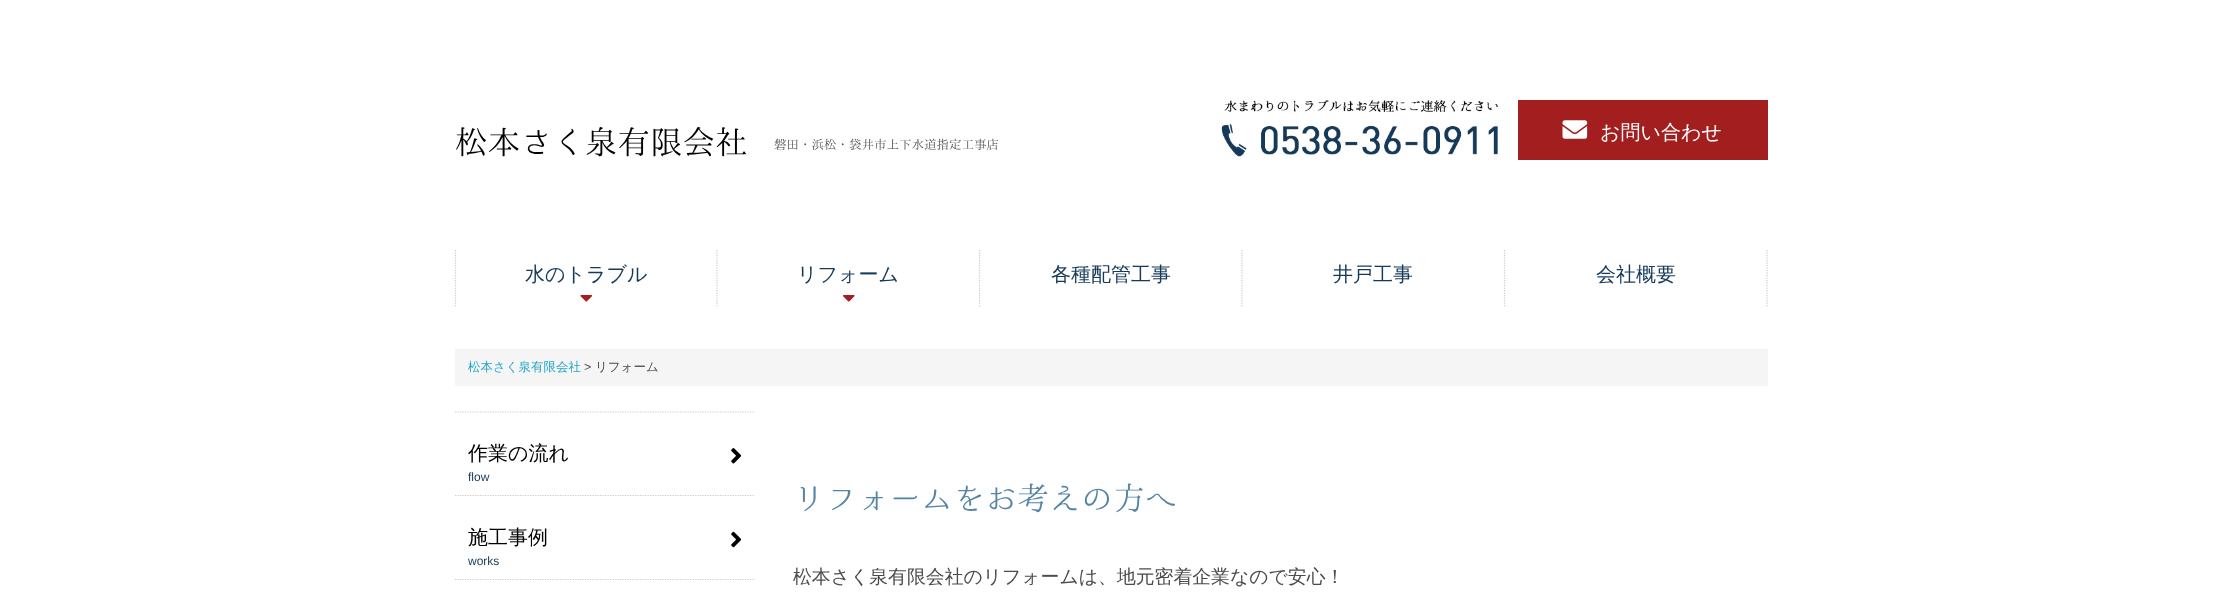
async function draw(canvas) {
	canvas.width = 2222;
	canvas.height = 602;
	const c = canvas.getContext('2d');
	c.miterLimit = 4;
	c.fontKerning = 'normal';
	async function loadImage(src) {
		const img = new Image();
		img.src = src;
		await img.decode();
		return img;
	}

	c.fillStyle = '#fff';
	c.fillRect(0, 0, 2222, 602);
	c.font = '32.5px "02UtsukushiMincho"';
	c.fillStyle = '#000';
	c.fillText('松本さく泉有限会社', 455, 154);
	c.font = '12.5px "02UtsukushiMincho"';
	c.fillStyle = '#4b4b4b';
	c.fillText('磐田・浜松・袋井市上下水道指定工事店', 774, 149);
	c.drawImage(await loadImage('img1.png'), 1221, 100, 277, 57);
	c.fillStyle = '#a31f1f';
	c.fillRect(1518, 100, 250, 60);
	c.drawImage(await loadImage('img2.png'), 1562, 120, 26, 19);
	c.font = '500 20px WenQuanYi Zen Hei';
	c.fillStyle = '#fff';
	c.fillText('お問い合わせ', 1600, 139);
	c.beginPath();
	c.moveTo(717, 250);
	c.lineTo(717, 307.5);
	c.strokeStyle = '#ccc';
	c.lineWidth = 1.2;
	c.setLineDash([1.25, 1.25]);
	c.stroke();
	c.beginPath();
	c.moveTo(455.5, 250);
	c.lineTo(455.5, 307.5);
	c.stroke();
	c.fillStyle = '#153a59';
	c.fillText('水のトラブル', 525, 281);
	c.drawImage(await loadImage('img3.png'), 580, 295, 12, 7);
	c.beginPath();
	c.moveTo(979.5, 250);
	c.lineTo(979.5, 307.5);
	c.stroke();
	c.fillText('リフォーム', 797, 281);
	c.drawImage(await loadImage('img4.png'), 843, 295, 12, 7);
	c.beginPath();
	c.moveTo(1242, 250);
	c.lineTo(1242, 307.5);
	c.stroke();
	c.fillText('各種配管工事', 1051, 281);
	c.beginPath();
	c.moveTo(1504.5, 250);
	c.lineTo(1504.5, 307.5);
	c.stroke();
	c.fillText('井戸工事', 1333, 281);
	c.beginPath();
	c.moveTo(1767, 250);
	c.lineTo(1767, 307.5);
	c.stroke();
	c.fillText('会社概要', 1596, 281);
	c.fillStyle = '#f5f5f5';
	c.fillRect(455, 349, 1313, 37);
	c.font = '500 12.5px WenQuanYi Zen Hei';
	c.fillStyle = '#26a7c6';
	c.fillText('松本さく泉有限会社', 468, 371);
	c.font = '12.5px Liberation Sans';
	c.fillStyle = '#4b4b4b';
	c.fillText('>', 584, 371);
	c.font = '500 12.5px WenQuanYi Zen Hei';
	c.fillText('リフォーム', 595, 371);
	c.beginPath();
	c.moveTo(455, 412);
	c.lineTo(755, 412);
	c.stroke();
	c.beginPath();
	c.moveTo(455, 495.5);
	c.lineTo(755, 495.5);
	c.stroke();
	c.font = '500 20px WenQuanYi Zen Hei';
	c.fillStyle = '#000';
	c.fillText('作業の流れ', 468, 460);
	c.drawImage(await loadImage('img5.png'), 731, 448, 11, 16);
	c.font = '12px Liberation Sans';
	c.fillStyle = '#153a59';
	c.fillText('flow', 468, 481);
	c.beginPath();
	c.moveTo(455, 579.5);
	c.lineTo(755, 579.5);
	c.stroke();
	c.font = '500 20px WenQuanYi Zen Hei';
	c.fillStyle = '#000';
	c.fillText('施工事例', 468, 544);
	c.drawImage(await loadImage('img6.png'), 731, 531, 11, 17);
	c.font = '12px Liberation Sans';
	c.fillStyle = '#153a59';
	c.fillText('works', 468, 565);
	c.font = '32px "02UtsukushiMincho"';
	c.fillStyle = '#5585a5';
	c.fillText('リフォームをお考えの方へ', 793, 510);
	c.font = '500 18.85px WenQuanYi Zen Hei';
	c.fillStyle = '#4b4b4b';
	c.fillText('松本さく泉有限会社のリフォームは、地元密着企業なので安心！', 793, 583);
}

draw(document.querySelector('canvas'));
